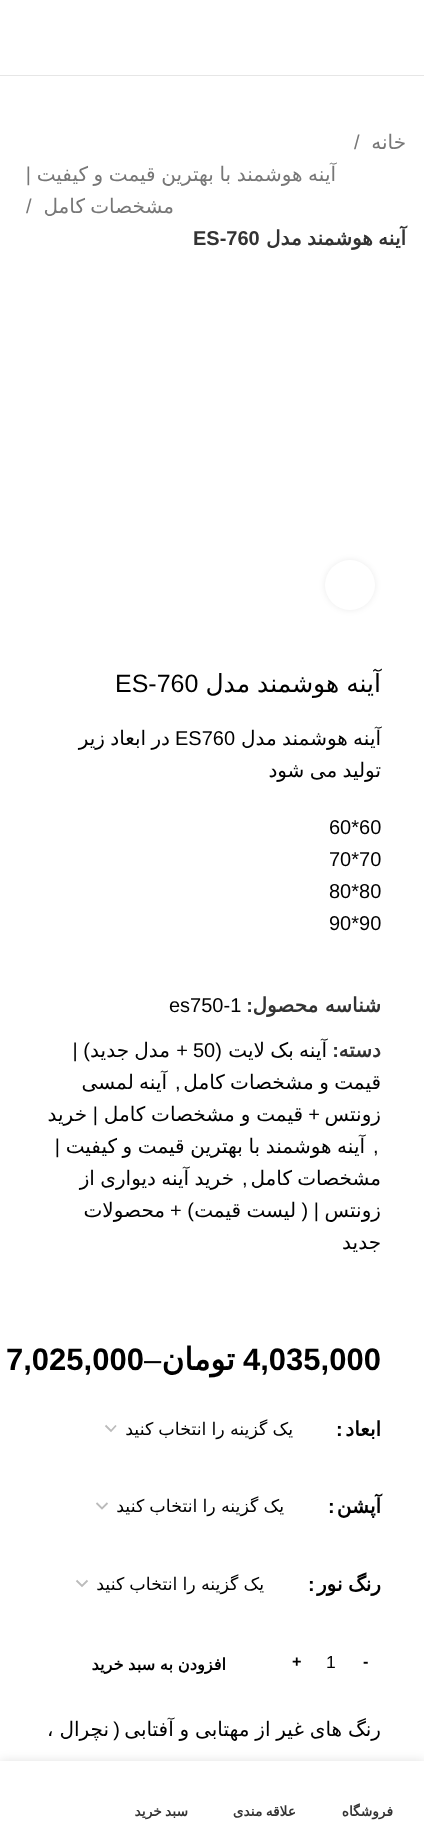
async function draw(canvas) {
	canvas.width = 424;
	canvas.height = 1830;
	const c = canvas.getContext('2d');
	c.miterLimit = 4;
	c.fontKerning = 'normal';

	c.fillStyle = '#fff';
	c.fillRect(0, 0, 424, 1830);
	c.fillStyle = '#e6e6e6';
	c.fillRect(0, 75, 424, 1);
	c.direction = 'rtl';
	c.font = '20px DejaVu Sans';
	c.fillStyle = '#777';
	c.fillText('خانه', 406, 149);
	c.direction = 'ltr';
	c.font = '20px Liberation Sans';
	c.fillText('/', 354, 149);
	c.wordSpacing = '-0.75px';
	c.direction = 'rtl';
	c.font = '20px DejaVu Sans';
	c.fillText('آینه هوشمند با بهترین قیمت و کیفیت', 336, 181);
	c.wordSpacing = '0px';
	c.font = '20px Liberation Sans';
	c.fillText('|', 31, 181);
	c.wordSpacing = '-1px';
	c.font = '20px DejaVu Sans';
	c.fillText('مشخصات کامل', 174, 213);
	c.wordSpacing = '0px';
	c.direction = 'ltr';
	c.font = '20px Liberation Sans';
	c.fillText('/', 26, 213);
	c.wordSpacing = '-1px';
	c.direction = 'rtl';
	c.font = 'bold 20px DejaVu Sans';
	c.fillStyle = '#333';
	c.fillText('آینه هوشمند مدل', 406, 245);
	c.wordSpacing = '0px';
	c.direction = 'ltr';
	c.font = 'bold 20px Liberation Sans';
	c.fillText('ES-760', 193, 245);
	c.fillStyle = '#00000014';
	c.filter = 'blur(3px)';
	c.beginPath();
	c.roundRect(325, 560, 50, 50, 25);
	c.fill();
	c.filter = 'none';
	c.fillStyle = '#fff';
	c.beginPath();
	c.arc(350, 585, 25, 0, 2 * Math.PI);
	c.fill();
	c.wordSpacing = '-1px';
	c.direction = 'rtl';
	c.font = '25px DejaVu Sans';
	c.fillStyle = '#000';
	c.fillText('آینه هوشمند مدل', 381, 692);
	c.wordSpacing = '0px';
	c.direction = 'ltr';
	c.font = '25px Liberation Sans';
	c.fillText('ES-760', 115, 692);
	c.wordSpacing = '-1px';
	c.direction = 'rtl';
	c.font = '20px DejaVu Sans';
	c.fillText('آینه هوشمند مدل', 381, 745);
	c.wordSpacing = '0px';
	c.direction = 'ltr';
	c.font = '20px Liberation Sans';
	c.fillText('ES760', 175, 745);
	c.wordSpacing = '-1px';
	c.direction = 'rtl';
	c.font = '20px DejaVu Sans';
	c.fillText('در ابعاد زیر', 170, 745);
	c.fillText('تولید می شود', 381, 777);
	c.wordSpacing = '0px';
	c.direction = 'ltr';
	c.font = '20px Liberation Sans';
	for (const [text, x, y] of [
		['60*60', 329, 834],
		['70*70', 329, 866],
		['80*80', 329, 898],
		['90*90', 329, 930],
	]) {
		c.fillText(text, x, y);
	}
	c.direction = 'rtl';
	c.font = 'bold 20px DejaVu Sans';
	c.fillStyle = '#333';
	c.fillText('شناسه محصول', 381, 1012);
	c.font = 'bold 20px Liberation Sans';
	c.fillText(':', 253, 1012);
	c.direction = 'ltr';
	c.font = '20px Liberation Sans';
	c.fillStyle = '#000';
	c.fillText('es750-1', 169, 1012);
	c.direction = 'rtl';
	c.font = 'bold 20px DejaVu Sans';
	c.fillStyle = '#333';
	c.fillText('دسته', 381, 1057);
	c.font = 'bold 20px Liberation Sans';
	c.fillText(':', 339, 1057);
	c.wordSpacing = '-1px';
	c.font = '20px DejaVu Sans';
	c.fillStyle = '#000';
	c.fillText('آینه بک لایت', 327, 1057);
	c.wordSpacing = '0px';
	c.font = '20px Liberation Sans';
	c.fillText('(', 222, 1057);
	c.direction = 'ltr';
	c.fillText('50', 193, 1057);
	c.direction = 'rtl';
	c.fillText('+', 188, 1057);
	c.font = '20px DejaVu Sans';
	c.fillText('مدل', 170, 1057);
	c.fillText('جدید', 129, 1057);
	c.font = '20px Liberation Sans';
	c.fillText(') |', 90, 1057);
	c.wordSpacing = '-1px';
	c.font = '20px DejaVu Sans';
	c.fillText('قیمت و مشخصات کامل', 381, 1089);
	c.wordSpacing = '0px';
	c.direction = 'ltr';
	c.font = '20px Liberation Sans';
	c.fillText(',', 175, 1089);
	c.wordSpacing = '-1px';
	c.direction = 'rtl';
	c.font = '20px DejaVu Sans';
	c.fillText('آینه لمسی', 167, 1089);
	c.wordSpacing = '0px';
	c.fillText('زونتس', 381, 1121);
	c.font = '20px Liberation Sans';
	c.fillText('+', 320, 1121);
	c.wordSpacing = '-0.5px';
	c.font = '20px DejaVu Sans';
	c.fillText('قیمت و مشخصات کامل', 303, 1121);
	c.wordSpacing = '0px';
	c.font = '20px Liberation Sans';
	c.fillText('|', 98, 1121);
	c.font = '20px DejaVu Sans';
	c.fillText('خرید', 87, 1121);
	c.direction = 'ltr';
	c.font = '20px Liberation Sans';
	c.fillText(',', 373, 1153);
	c.wordSpacing = '-0.75px';
	c.direction = 'rtl';
	c.font = '20px DejaVu Sans';
	c.fillText('آینه هوشمند با بهترین قیمت و کیفیت', 365, 1153);
	c.wordSpacing = '0px';
	c.font = '20px Liberation Sans';
	c.fillText('|', 60, 1153);
	c.wordSpacing = '-1px';
	c.font = '20px DejaVu Sans';
	c.fillText('مشخصات کامل', 381, 1185);
	c.wordSpacing = '0px';
	c.direction = 'ltr';
	c.font = '20px Liberation Sans';
	c.fillText(',', 242, 1185);
	c.wordSpacing = '-1px';
	c.direction = 'rtl';
	c.font = '20px DejaVu Sans';
	c.fillText('خرید آینه دیواری از', 234, 1185);
	c.wordSpacing = '0px';
	c.fillText('زونتس', 381, 1217);
	c.font = '20px Liberation Sans';
	c.fillText('| (', 319, 1217);
	c.font = '20px DejaVu Sans';
	c.fillText('لیست', 296, 1217);
	c.fillText('قیمت', 241, 1217);
	c.font = '20px Liberation Sans';
	c.fillText(') +', 194, 1217);
	c.font = '20px DejaVu Sans';
	c.fillText('محصولات', 165, 1217);
	c.fillText('جدید', 381, 1249);
	c.direction = 'ltr';
	c.font = 'bold 31px Liberation Sans';
	c.fillText('4,035,000', 243, 1370);
	c.direction = 'rtl';
	c.font = 'bold 31px DejaVu Sans';
	c.fillText('تومان', 235, 1370);
	c.direction = 'ltr';
	c.font = '31px Liberation Sans';
	c.fillText('–', 144, 1370);
	c.font = 'bold 31px Liberation Sans';
	c.fillText('7,025,000', 6, 1370);
	c.direction = 'rtl';
	c.font = 'bold 20px DejaVu Sans';
	c.fillText('ابعاد', 381, 1436);
	c.direction = 'ltr';
	c.font = 'bold 20px Liberation Sans';
	c.fillText(':', 336, 1436);
	c.beginPath();
	c.moveTo(105.5, 1425.5);
	c.lineTo(111, 1431);
	c.lineTo(116, 1425.5);
	c.strokeStyle = '#bbb';
	c.lineWidth = 1.8;
	c.stroke();
	c.wordSpacing = '-0.5px';
	c.direction = 'rtl';
	c.font = '17.5px DejaVu Sans';
	c.fillText('یک گزینه را انتخاب کنید', 293, 1435);
	c.wordSpacing = '0px';
	c.font = 'bold 20px DejaVu Sans';
	c.fillText('آپشن', 381, 1513);
	c.direction = 'ltr';
	c.font = 'bold 20px Liberation Sans';
	c.fillText(':', 328, 1513);
	c.beginPath();
	c.moveTo(96.5, 1503);
	c.lineTo(102, 1508.5);
	c.lineTo(107.5, 1503);
	c.stroke();
	c.wordSpacing = '-0.5px';
	c.direction = 'rtl';
	c.font = '17.5px DejaVu Sans';
	c.fillText('یک گزینه را انتخاب کنید', 284, 1512);
	c.wordSpacing = '-1px';
	c.font = 'bold 20px DejaVu Sans';
	c.fillText('رنگ نور', 381, 1591);
	c.wordSpacing = '0px';
	c.direction = 'ltr';
	c.font = 'bold 20px Liberation Sans';
	c.fillText(':', 308, 1591);
	c.beginPath();
	c.moveTo(76.5, 1580.5);
	c.lineTo(82, 1586);
	c.lineTo(87.5, 1580.5);
	c.stroke();
	c.wordSpacing = '-0.5px';
	c.direction = 'rtl';
	c.font = '17.5px DejaVu Sans';
	c.fillText('یک گزینه را انتخاب کنید', 264, 1590);
	c.wordSpacing = '0px';
	c.direction = 'ltr';
	c.font = 'bold 16.25px Liberation Sans';
	c.fillText('-', 363, 1667);
	c.font = '17.5px Liberation Sans';
	c.fillText('1', 326, 1668);
	c.font = 'bold 16.25px Liberation Sans';
	c.fillText('+', 292, 1667);
	c.wordSpacing = '-0.5px';
	c.direction = 'rtl';
	c.font = 'bold 16.25px DejaVu Sans';
	c.fillText('افزودن به سبد خرید', 226, 1670);
	c.font = '20px DejaVu Sans';
	c.fillText('رنگ های غیر از مهتابی و آفتابی', 381, 1736);
	c.wordSpacing = '0px';
	c.font = '20px Liberation Sans';
	c.fillText('(', 120, 1736);
	c.wordSpacing = '-0.5px';
	c.font = '20px DejaVu Sans';
	c.fillText('نچرال ،', 109, 1736);
	c.fillStyle = '#0000001f';
	c.filter = 'blur(5.5px)';
	c.beginPath();
	c.rect(0, 1761, 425, 69);
	c.fill();
	c.filter = 'none';
	c.fillStyle = '#fff';
	c.fillRect(0, 1761, 424, 69);
	c.wordSpacing = '0px';
	c.font = 'bold 13.75px DejaVu Sans';
	c.fillStyle = '#333';
	c.fillText('فروشگاه', 393, 1816);
	c.wordSpacing = '-1px';
	c.fillText('علاقه مندی', 296, 1816);
	c.fillText('سبد خرید', 188, 1816);
}

draw(document.querySelector('canvas'));
